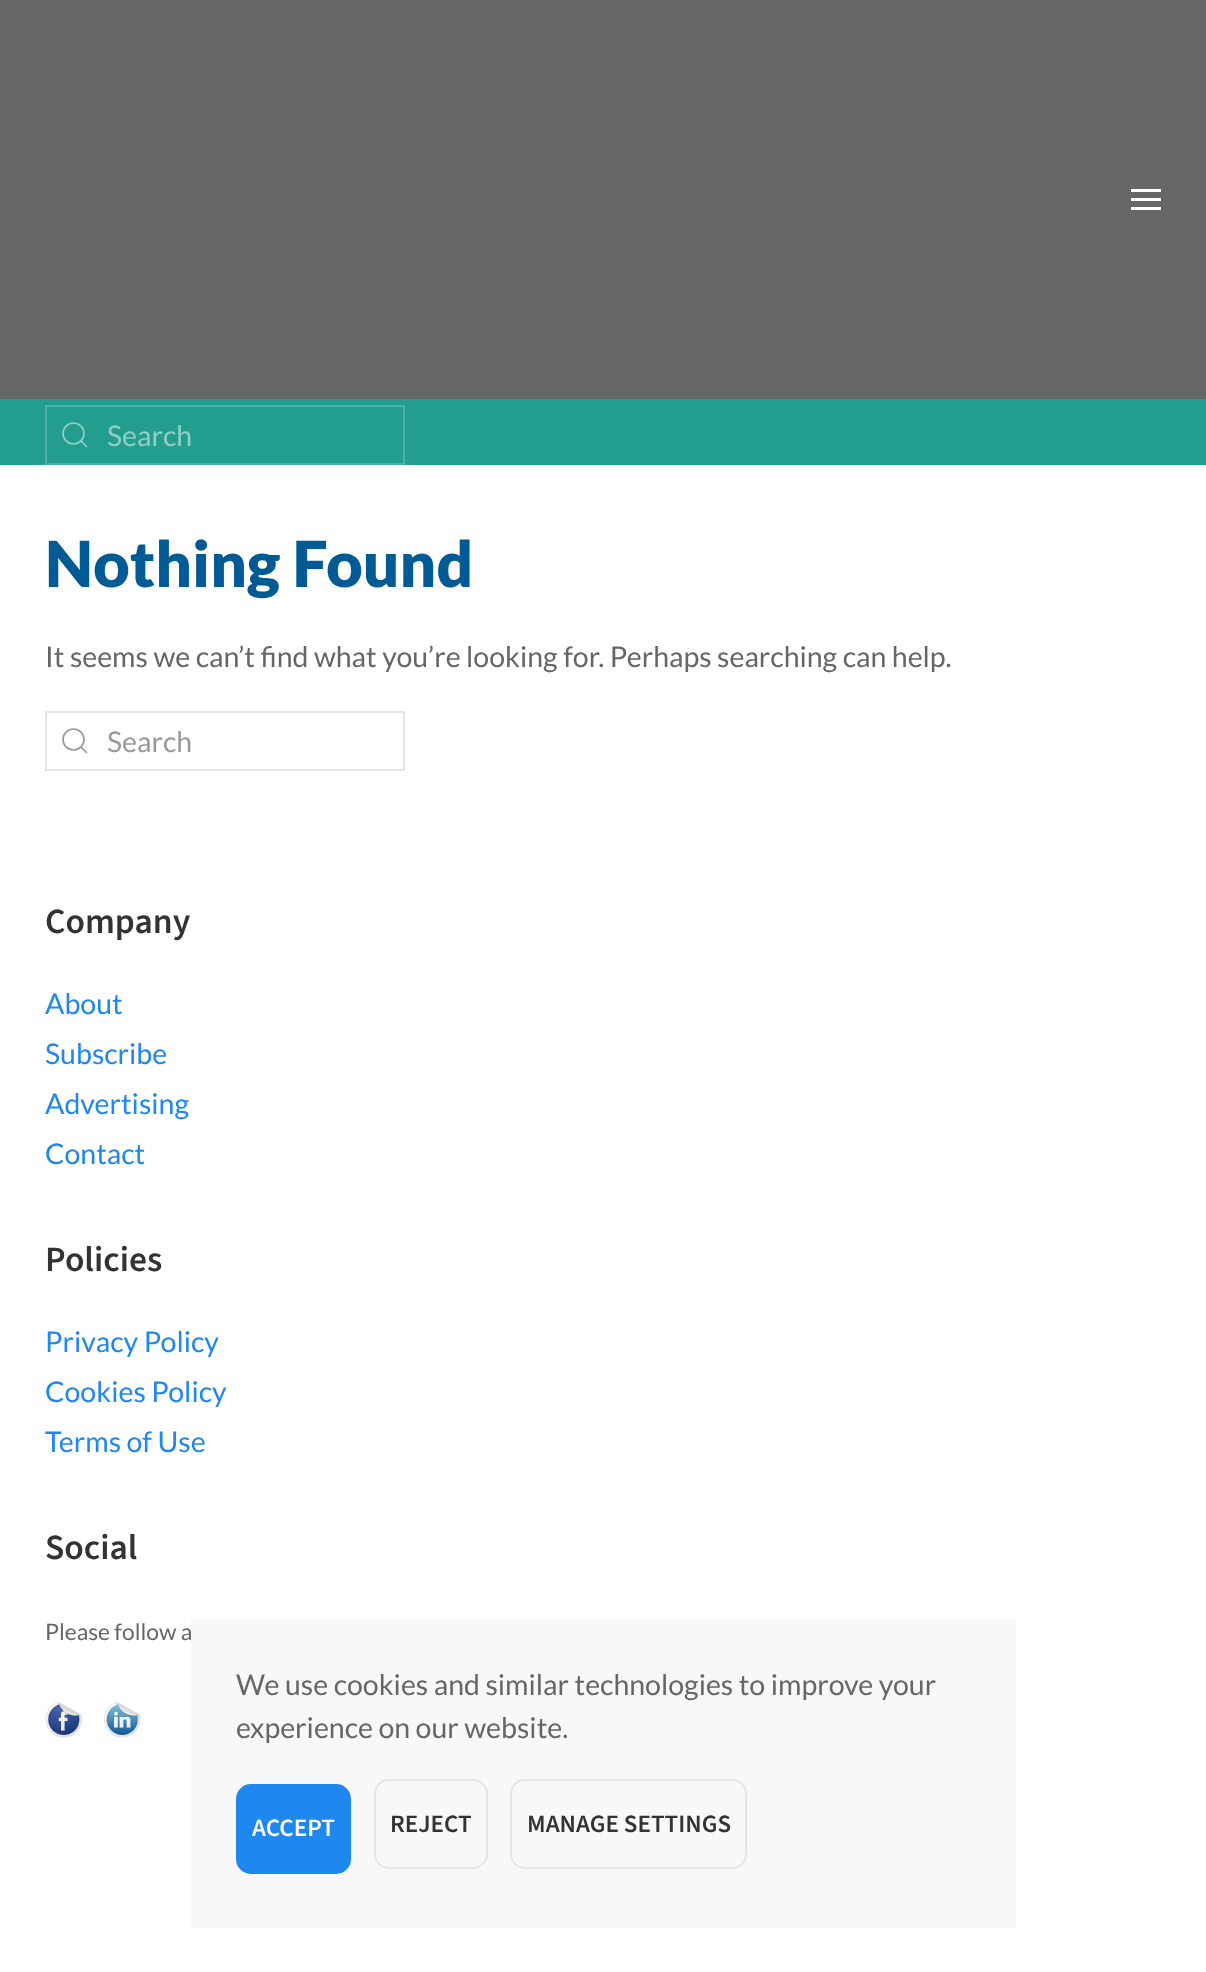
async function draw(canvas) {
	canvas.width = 1206;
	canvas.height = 1972;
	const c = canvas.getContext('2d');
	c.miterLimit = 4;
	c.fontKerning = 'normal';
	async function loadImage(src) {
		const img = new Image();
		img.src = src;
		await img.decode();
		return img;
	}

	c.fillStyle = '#fff';
	c.fillRect(0, 0, 1206, 1972);
	for (const [x, y, w, h, color] of [
		[0, 0, 1206, 399, '#666'],
		[1131, 189, 30, 3, '#fff'],
		[1131, 198, 30, 3, '#fff'],
		[1131, 207, 30, 3, '#fff'],
		[0, 399, 1206, 66, '#239d8e'],
	]) {
		c.fillStyle = color;
		c.fillRect(x, y, w, h);
	}
	c.strokeStyle = '#4fb1a5';
	c.lineWidth = 2;
	c.strokeRect(46, 406, 358, 58);
	c.beginPath();
	c.arc(73.5, 433.5, 10.5, 0, 2 * Math.PI);
	c.strokeStyle = '#91cec7';
	c.lineWidth = 1.7;
	c.stroke();
	c.beginPath();
	c.moveTo(81, 441);
	c.lineTo(87, 447);
	c.closePath();
	c.strokeStyle = '#ffffff80';
	c.stroke();
	c.font = '28.5px Lato';
	c.fillStyle = '#91cec7';
	c.fillText('Search', 107, 446);
	c.font = '900 63.5px Lato';
	c.fillStyle = '#005b94';
	c.fillText('Nothing Found', 45, 587);
	c.font = '28.5px Lato';
	c.fillStyle = '#666';
	c.fillText('It seems we can’t find what you’re looking for. Perhaps searching can help.', 45, 667);
	c.strokeStyle = '#e5e5e5';
	c.lineWidth = 2;
	c.strokeRect(46, 712, 358, 58);
	c.beginPath();
	c.arc(73.5, 739.5, 10.5, 0, 2 * Math.PI);
	c.strokeStyle = '#999';
	c.lineWidth = 1.7;
	c.stroke();
	c.beginPath();
	c.moveTo(81, 747);
	c.lineTo(87, 753);
	c.closePath();
	c.stroke();
	c.fillStyle = '#999';
	c.fillText('Search', 107, 752);
	c.font = '200 35.5px "Source Sans 3"';
	c.fillStyle = '#333';
	c.fillText('Company', 45, 933);
	c.font = '28.5px Lato';
	c.fillStyle = '#1e87f0';
	for (const [text, x, y] of [
		['About', 45, 1014],
		['Subscribe', 45, 1064],
		['Advertising', 45, 1114],
		['Contact', 45, 1164],
	]) {
		c.fillText(text, x, y);
	}
	c.font = '200 35.5px "Source Sans 3"';
	c.fillStyle = '#333';
	c.fillText('Policies', 45, 1271);
	c.font = '28.5px Lato';
	c.fillStyle = '#1e87f0';
	for (const [text, x, y] of [
		['Privacy Policy', 45, 1352],
		['Cookies Policy', 45, 1402],
		['Terms of Use', 45, 1452],
	]) {
		c.fillText(text, x, y);
	}
	c.font = '200 35.5px "Source Sans 3"';
	c.fillStyle = '#333';
	c.fillText('Social', 45, 1559);
	c.font = '22.75px Lato';
	c.fillStyle = '#666';
	c.fillText('Please follow a', 45, 1640);
	c.drawImage(await loadImage('img1.png'), 45, 1702, 37, 36);
	c.drawImage(await loadImage('img2.png'), 104, 1702, 37, 36);
	c.fillStyle = '#f8f8f8';
	c.fillRect(191, 1619, 825, 309);
	c.font = '28.5px Lato';
	c.fillStyle = '#666';
	c.fillText('We use cookies and similar technologies to improve your', 236, 1695);
	c.fillText('experience on our website.', 236, 1738);
	c.fillStyle = '#1e87f0';
	c.beginPath();
	c.roundRect(236, 1784, 115, 90, 15);
	c.fill();
	c.font = '200 25px "Source Sans 3"';
	c.fillStyle = '#fff';
	c.fillText('ACCEPT', 252, 1836);
	c.beginPath();
	c.roundRect(375, 1780, 112, 88, 14);
	c.strokeStyle = '#e5e5e5';
	c.lineWidth = 2;
	c.stroke();
	c.fillStyle = '#333';
	c.fillText('REJECT', 390, 1832);
	c.beginPath();
	c.roundRect(511, 1780, 235, 88, 14);
	c.stroke();
	c.fillText('MANAGE SETTINGS', 527, 1832);
}

draw(document.querySelector('canvas'));
